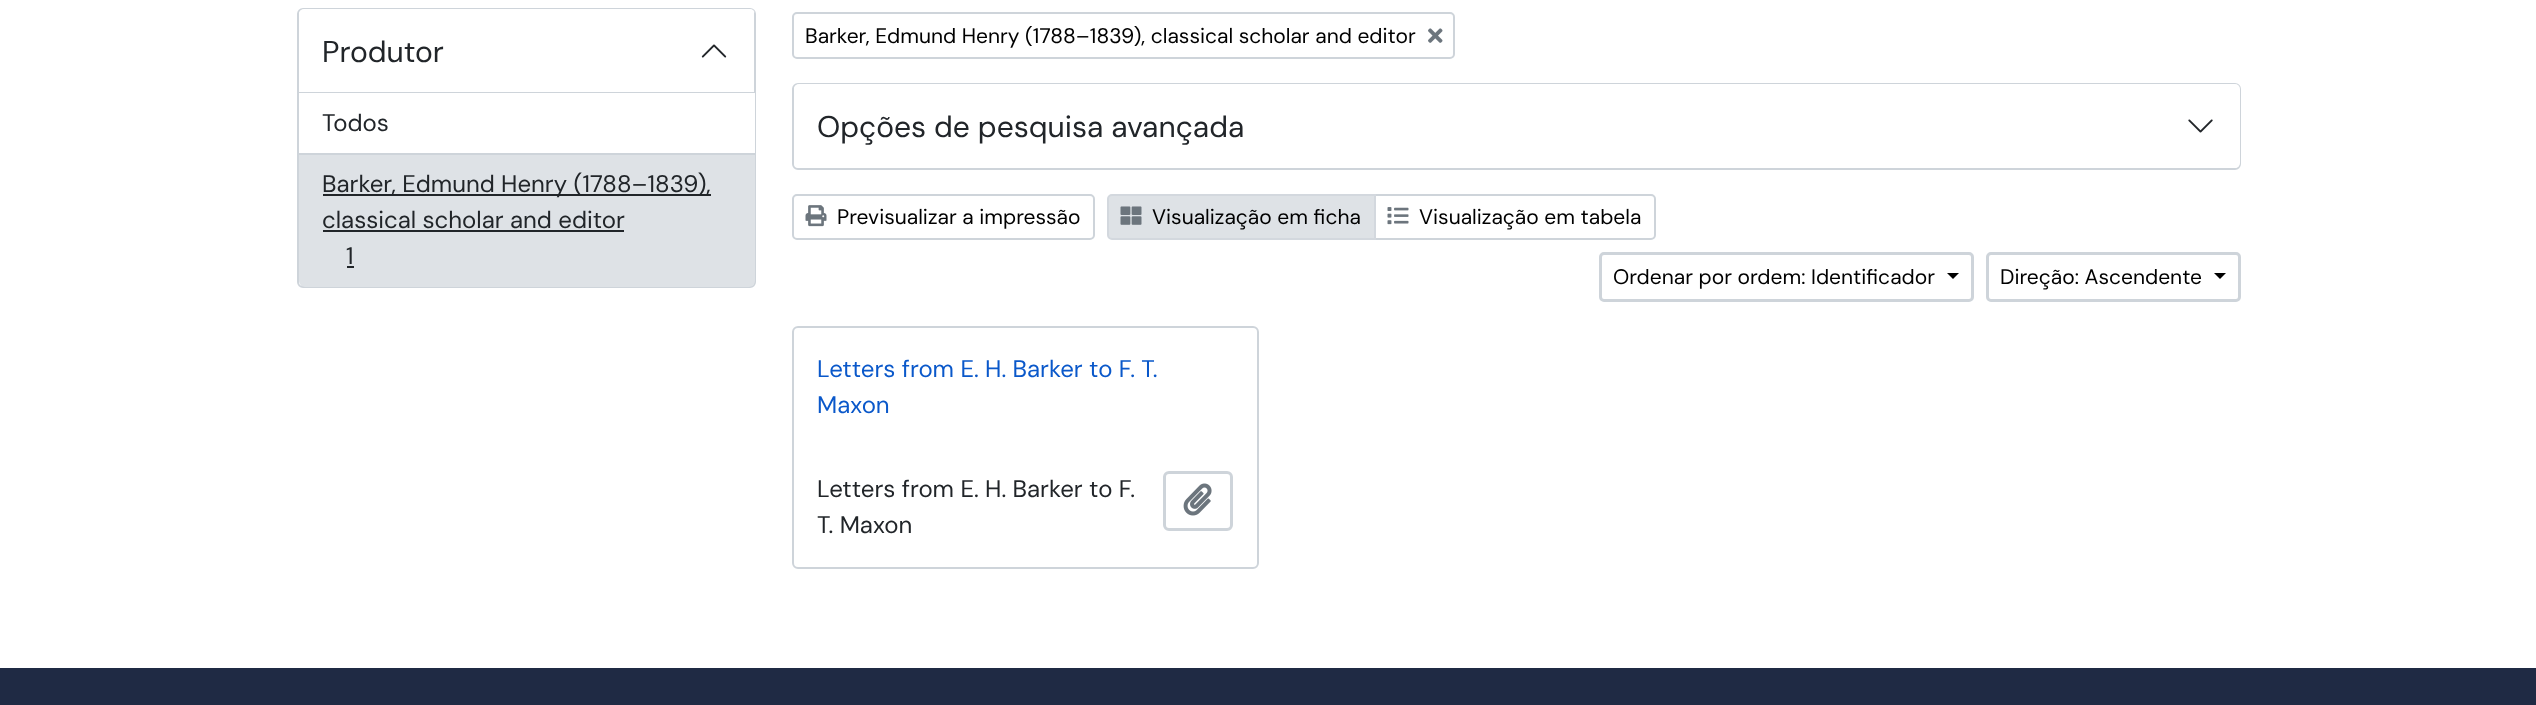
async function draw(canvas) {
	canvas.width = 2536;
	canvas.height = 705;
	const c = canvas.getContext('2d');
	c.miterLimit = 4;
	c.fontKerning = 'normal';
	async function loadImage(src) {
		const img = new Image();
		img.src = src;
		await img.decode();
		return img;
	}

	c.fillStyle = '#fff';
	c.fillRect(0, 0, 2536, 705);
	c.beginPath();
	c.roundRect(298, 9, 457, 278, 5);
	c.strokeStyle = '#ced4da';
	c.lineWidth = 2;
	c.stroke();
	c.beginPath();
	c.roundRect(299, 9, 456, 84, [5, 5, 0, 0]);
	c.fill();
	c.fillStyle = '#ced4da';
	c.beginPath();
	c.moveTo(299, 92);
	c.lineTo(299, 93);
	c.lineTo(755, 93);
	c.lineTo(755, 13);
	c.lineTo(754, 11);
	c.lineTo(754, 92);
	c.closePath();
	c.fill();
	c.font = '30px DM Sans';
	c.fillStyle = '#212529';
	c.fillText('Produtor', 322, 62);
	c.drawImage(await loadImage('img1.png'), 701, 44, 26, 14);
	c.fillStyle = '#fff';
	c.fillRect(754, 93, 1, 60);
	c.fillStyle = '#ced4da';
	c.fillRect(299, 153, 456, 2);
	c.font = '24px DM Sans';
	c.fillStyle = '#212529';
	c.fillText('Todos', 322, 131);
	c.fillStyle = '#dee2e6';
	c.beginPath();
	c.roundRect(299, 155, 456, 132, [0, 0, 6, 6]);
	c.fill();
	c.fillStyle = '#212529';
	c.fillRect(323, 194, 388, 2);
	c.fillText('Barker, Edmund Henry (1788–1839),', 322, 192);
	c.fillText('classical scholar and editor', 322, 228);
	c.fillRect(323, 230, 301, 2);
	c.fillText('1', 346, 264);
	c.fillRect(347, 266, 7, 2);
	c.beginPath();
	c.roundRect(793, 13, 661, 45, 4);
	c.stroke();
	c.font = '21px DM Sans';
	c.fillStyle = '#000';
	c.fillText('Barker, Edmund Henry (1788–1839), classical scholar and editor', 805, 43);
	c.drawImage(await loadImage('img2.png'), 1428, 28, 15, 15);
	c.beginPath();
	c.roundRect(793, 84, 1447, 85, 5);
	c.stroke();
	c.fillStyle = '#fff';
	c.beginPath();
	c.roundRect(794, 84, 1446, 84, 5);
	c.fill();
	c.font = '30px DM Sans';
	c.fillStyle = '#212529';
	c.fillText('Opções de pesquisa avançada', 817, 137);
	c.drawImage(await loadImage('img3.png'), 2188, 119, 25, 14);
	c.beginPath();
	c.roundRect(793, 195, 301, 44, 4);
	c.stroke();
	c.drawImage(await loadImage('img4.png'), 805, 205, 22, 22);
	c.font = '21px DM Sans';
	c.fillStyle = '#000';
	c.fillText('Previsualizar a impressão', 837, 224);
	c.beginPath();
	c.roundRect(1375, 195, 280, 44, [0, 4, 4, 0]);
	c.stroke();
	c.fillStyle = '#dee2e6';
	c.beginPath();
	c.roundRect(1108, 195, 267, 44, [4, 0, 0, 4]);
	c.fill();
	c.strokeStyle = '#d3d8de';
	c.stroke();
	c.drawImage(await loadImage('img5.png'), 1120, 206, 22, 19);
	c.fillStyle = '#000';
	c.fillText('Visualização em ficha', 1152, 224);
	c.drawImage(await loadImage('img6.png'), 1387, 207, 22, 18);
	c.fillText('Visualização em tabela', 1419, 224);
	c.beginPath();
	c.roundRect(1600.5, 253.5, 372, 47, 3.5);
	c.strokeStyle = '#ced4da';
	c.lineWidth = 3;
	c.stroke();
	c.fillText('Ordenar por ordem: Identificador', 1613, 284);
	c.beginPath();
	c.moveTo(1947, 273);
	c.lineTo(1959, 273);
	c.lineTo(1953, 279);
	c.closePath();
	c.fill();
	c.beginPath();
	c.roundRect(1987.5, 253.5, 252, 47, 3.5);
	c.stroke();
	c.fillText('Direção: Ascendente', 2000, 284);
	c.beginPath();
	c.moveTo(2214, 273);
	c.lineTo(2226, 273);
	c.lineTo(2220, 279);
	c.closePath();
	c.fill();
	c.beginPath();
	c.roundRect(793, 327, 465, 241, 5);
	c.lineWidth = 2;
	c.stroke();
	c.font = '24px DM Sans';
	c.fillStyle = '#0a58ca';
	c.fillText('Letters from E. H. Barker to F. T.', 817, 377);
	c.fillText('Maxon', 817, 413);
	c.fillStyle = '#212529';
	c.fillText('Letters from E. H. Barker to F.', 817, 497);
	c.fillText('T. Maxon', 817, 533);
	c.beginPath();
	c.roundRect(1164.5, 472.5, 67, 57, 4.5);
	c.lineWidth = 3;
	c.stroke();
	c.drawImage(await loadImage('img7.png'), 1183, 483, 29, 33);
	c.fillStyle = '#1f2a44';
	c.fillRect(0, 668, 2536, 37);
}

draw(document.querySelector('canvas'));
